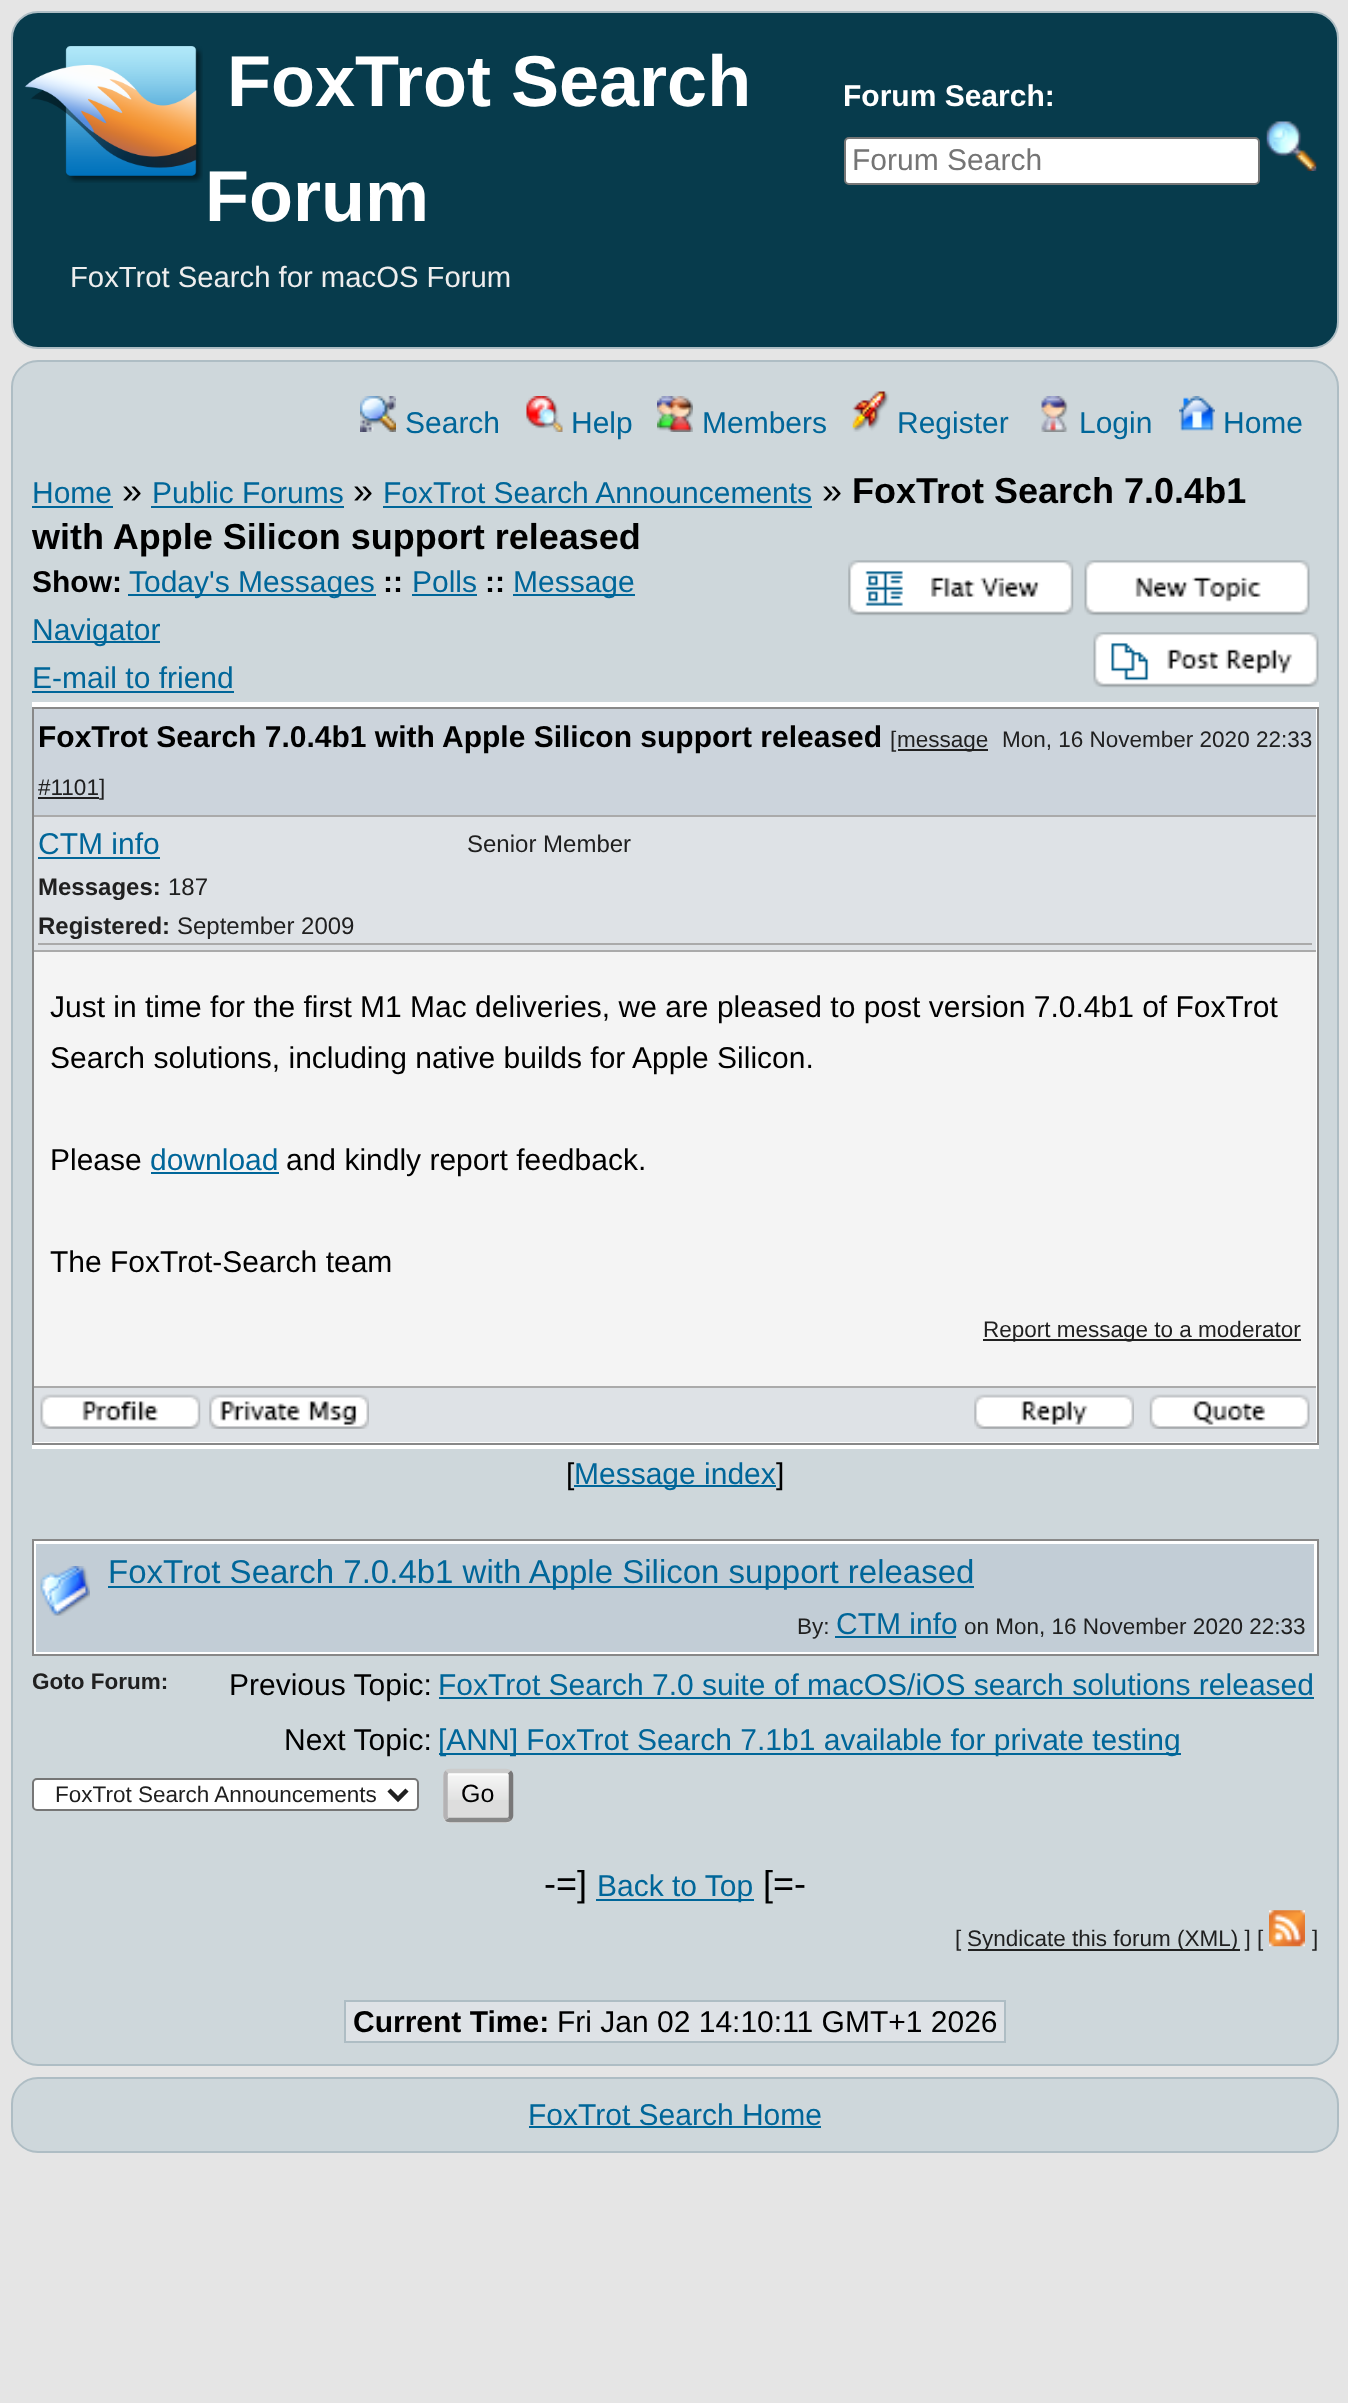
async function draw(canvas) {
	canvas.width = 1348;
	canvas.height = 2403;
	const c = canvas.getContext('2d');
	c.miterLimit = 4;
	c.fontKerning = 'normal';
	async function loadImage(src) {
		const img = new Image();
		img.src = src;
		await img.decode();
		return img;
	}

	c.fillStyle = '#e5e5e5';
	c.fillRect(0, 0, 1348, 2403);
	c.fillStyle = '#073b4c';
	c.beginPath();
	c.roundRect(12, 12, 1326, 336, 26);
	c.fill();
	c.strokeStyle = '#aebdc4';
	c.lineWidth = 2;
	c.stroke();
	c.drawImage(await loadImage('img1.png'), 24, 46, 179, 137);
	c.font = 'bold 72px Liberation Sans';
	c.fillStyle = '#fff';
	c.fillText('FoxTrot Search', 227, 106);
	c.fillText('Forum', 205, 221);
	c.font = 'bold 30px Liberation Sans';
	c.fillText('Forum Search:', 843, 106);
	c.beginPath();
	c.roundRect(845, 138, 414, 46, 4);
	c.fill();
	c.strokeStyle = '#767676';
	c.stroke();
	c.font = '30px Liberation Sans';
	c.fillStyle = '#757575';
	c.fillText('Forum Search', 852, 170);
	c.drawImage(await loadImage('img2.png'), 1266, 121, 51, 50);
	c.font = '29.25px Liberation Sans';
	c.fillStyle = '#eee';
	c.fillText('FoxTrot Search for macOS Forum', 70, 287);
	c.fillStyle = '#ced7db';
	c.beginPath();
	c.roundRect(12, 361, 1326, 1704, 26);
	c.fill();
	c.strokeStyle = '#aebdc4';
	c.stroke();
	c.drawImage(await loadImage('img3.png'), 360, 396, 36, 36);
	c.font = '30px Liberation Sans';
	c.fillStyle = '#069';
	c.fillText('Search', 405, 433);
	c.drawImage(await loadImage('img4.png'), 526, 396, 37, 36);
	c.fillText('Help', 571, 433);
	c.drawImage(await loadImage('img5.png'), 657, 396, 36, 36);
	c.fillText('Members', 702, 433);
	c.drawImage(await loadImage('img6.png'), 852, 391, 37, 41);
	c.fillText('Register', 897, 433);
	c.drawImage(await loadImage('img7.png'), 1041, 396, 27, 36);
	c.fillText('Login', 1079, 433);
	c.drawImage(await loadImage('img8.png'), 1179, 396, 36, 35);
	c.fillText('Home', 1223, 433);
	c.fillText('Home', 32, 503);
	c.fillRect(32, 506, 81, 2);
	c.font = '36px Liberation Sans';
	c.fillStyle = '#000';
	c.fillText('»', 122, 503);
	c.font = '30px Liberation Sans';
	c.fillStyle = '#069';
	c.fillText('Public Forums', 152, 503);
	c.fillRect(151, 506, 193, 2);
	c.font = '36px Liberation Sans';
	c.fillStyle = '#000';
	c.fillText('»', 353, 503);
	c.font = '30px Liberation Sans';
	c.fillStyle = '#069';
	c.fillText('FoxTrot Search Announcements', 383, 503);
	c.fillRect(383, 506, 429, 2);
	c.font = '36px Liberation Sans';
	c.fillStyle = '#000';
	c.fillText('»', 822, 503);
	c.font = 'bold 36px Liberation Sans';
	c.fillText('FoxTrot Search 7.0.4b1', 852, 503);
	c.fillText('with Apple Silicon support released', 32, 549);
	c.font = 'bold 30px Liberation Sans';
	c.fillText('Show:', 32, 592);
	c.fillStyle = '#069';
	c.fillRect(128, 594, 248, 2);
	c.font = '30px Liberation Sans';
	c.fillText('Today\'s Messages', 129, 592);
	c.font = 'bold 30px Liberation Sans';
	c.fillStyle = '#000';
	c.fillText('::', 383, 592);
	c.font = '30px Liberation Sans';
	c.fillStyle = '#069';
	c.fillText('Polls', 412, 592);
	c.fillRect(412, 594, 65, 2);
	c.font = 'bold 30px Liberation Sans';
	c.fillStyle = '#000';
	c.fillText('::', 485, 592);
	c.fillStyle = '#069';
	c.fillRect(513, 594, 122, 2);
	c.font = '30px Liberation Sans';
	c.fillText('Message', 513, 592);
	c.fillRect(32, 641, 128, 2);
	c.fillText('Navigator', 32, 640);
	c.fillText('E-mail to friend', 32, 688);
	c.fillRect(32, 691, 202, 2);
	c.drawImage(await loadImage('img9.png'), 848, 560, 226, 56);
	c.drawImage(await loadImage('img10.png'), 1084, 560, 226, 56);
	c.drawImage(await loadImage('img11.png'), 1093, 632, 226, 56);
	c.fillStyle = '#fff';
	c.fillRect(32, 702, 1287, 747);
	c.strokeStyle = '#888';
	c.strokeRect(33, 708, 1285, 736);
	c.fillStyle = '#ccd4dc';
	c.fillRect(34, 709, 1282, 106);
	c.fillStyle = '#aaa';
	c.fillRect(34, 815, 1282, 2);
	c.font = 'bold 30px Liberation Sans';
	c.fillStyle = '#000';
	c.fillText('FoxTrot Search 7.0.4b1 with Apple Silicon support released', 38, 747);
	c.font = '22.5px Liberation Sans';
	c.fillStyle = '#202020';
	c.fillText('[', 890, 747);
	c.fillRect(898, 749, 90, 2);
	c.fillText('message', 897, 747);
	c.fillRect(38, 797, 61, 2);
	c.fillText('#1101]', 38, 795);
	c.fillText('Mon, 16 November 2020 22:33', 1002, 747);
	for (const [x, y, w, h, color] of [
		[34, 817, 1282, 133, '#dee2e6'],
		[34, 950, 1282, 2, '#aaa'],
		[38, 943, 1274, 2, '#aaa'],
	]) {
		c.fillStyle = color;
		c.fillRect(x, y, w, h);
	}
	c.font = '30px Liberation Sans';
	c.fillStyle = '#069';
	c.fillText('CTM info', 38, 854);
	c.fillRect(38, 857, 122, 2);
	c.font = 'bold 24px Liberation Sans';
	c.fillStyle = '#202020';
	c.fillText('Messages:', 38, 895);
	c.font = '24px Liberation Sans';
	c.fillText('187', 168, 895);
	c.font = 'bold 24px Liberation Sans';
	c.fillText('Registered:', 38, 934);
	c.font = '24px Liberation Sans';
	c.fillText('September 2009', 177, 934);
	c.fillText('Senior Member', 467, 852);
	c.fillStyle = '#f4f4f4';
	c.fillRect(34, 952, 1282, 434);
	c.fillStyle = '#aaa';
	c.fillRect(34, 1386, 1282, 2);
	c.font = '30px Liberation Sans';
	c.fillStyle = '#000';
	for (const [text, x, y] of [
		['Just in time for the first M1 Mac deliveries, we are pleased to post version 7.0.4b1 of FoxTrot', 50, 1017],
		['Search solutions, including native builds for Apple Silicon.', 50, 1068],
		['Please', 50, 1170],
	]) {
		c.fillText(text, x, y);
	}
	c.fillStyle = '#069';
	c.fillText('download', 150, 1170);
	c.fillRect(151, 1172, 128, 2);
	c.fillStyle = '#000';
	c.fillText('and kindly report feedback.', 286, 1170);
	c.fillText('The FoxTrot-Search team', 50, 1272);
	c.fillStyle = '#202020';
	c.fillRect(983, 1339, 318, 2);
	c.font = '22.5px Liberation Sans';
	c.fillText('Report message to a moderator', 983, 1337);
	c.fillStyle = '#dee2e6';
	c.fillRect(34, 1388, 1282, 54);
	c.drawImage(await loadImage('img12.png'), 40, 1394, 161, 35);
	c.drawImage(await loadImage('img13.png'), 209, 1394, 160, 35);
	c.drawImage(await loadImage('img14.png'), 974, 1394, 160, 35);
	c.drawImage(await loadImage('img15.png'), 1149, 1394, 161, 35);
	c.font = '30px Liberation Sans';
	c.fillStyle = '#000';
	c.fillText('[', 566, 1484);
	c.fillStyle = '#069';
	c.fillRect(574, 1485, 202, 2);
	c.fillText('Message index', 574, 1484);
	c.fillStyle = '#000';
	c.fillText(']', 776, 1484);
	c.fillStyle = '#fff';
	c.beginPath();
	c.rect(33, 1540, 1285, 115);
	c.fill();
	c.stroke();
	c.fillStyle = '#c2cdd6';
	c.fillRect(36, 1544, 1278, 108);
	c.drawImage(await loadImage('img16.png'), 40, 1566, 50, 50);
	c.fillStyle = '#069';
	c.fillRect(108, 1586, 866, 2);
	c.font = '33px Liberation Sans';
	c.fillText('FoxTrot Search 7.0.4b1 with Apple Silicon support released', 108, 1583);
	c.font = '22.5px Liberation Sans';
	c.fillStyle = '#202020';
	c.fillText('By:', 797, 1634);
	c.font = '30px Liberation Sans';
	c.fillStyle = '#069';
	c.fillText('CTM info', 836, 1634);
	c.fillRect(835, 1636, 121, 2);
	c.font = '22.5px Liberation Sans';
	c.fillStyle = '#202020';
	c.fillText('on Mon, 16 November 2020 22:33', 964, 1634);
	c.font = 'bold 22.5px Liberation Sans';
	c.fillText('Goto Forum:', 32, 1689);
	c.font = '30px Liberation Sans';
	c.fillStyle = '#000';
	c.fillText('Previous Topic:', 229, 1695);
	c.fillStyle = '#069';
	c.fillText('FoxTrot Search 7.0 suite of macOS/iOS search solutions released', 438, 1695);
	c.fillRect(439, 1697, 875, 2);
	c.fillStyle = '#000';
	c.fillText('Next Topic:', 284, 1750);
	c.fillStyle = '#069';
	c.fillRect(439, 1753, 742, 2);
	c.fillText('[ANN] FoxTrot Search 7.1b1 available for private testing', 438, 1750);
	c.fillStyle = '#fff';
	c.beginPath();
	c.roundRect(33, 1779, 385, 31, 4);
	c.fill();
	c.strokeStyle = '#767676';
	c.stroke();
	c.beginPath();
	c.moveTo(389, 1790);
	c.lineTo(398, 1799);
	c.lineTo(407, 1790);
	c.strokeStyle = '#202020';
	c.lineWidth = 4.5;
	c.stroke();
	c.font = '22.5px Liberation Sans';
	c.fillStyle = '#202020';
	c.fillText('FoxTrot Search Announcements', 55, 1802);
	c.fillStyle = '#ddd';
	c.beginPath();
	c.roundRect(443, 1769, 70, 54, 7);
	c.fill();
	c.drawImage(await loadImage('img17.png'), 443, 1773, 70, 27);
	c.beginPath();
	c.moveTo(447, 1772);
	c.bezierCurveTo(447.5, 1771, 449, 1771, 450, 1771);
	c.lineTo(506, 1771);
	c.bezierCurveTo(507.5, 1771, 508.5, 1771, 509.5, 1772);
	c.strokeStyle = '#ccc';
	c.stroke();
	c.beginPath();
	c.moveTo(509.5, 1772);
	c.bezierCurveTo(510.5, 1773, 511, 1774, 511, 1775);
	c.lineTo(511, 1816);
	c.bezierCurveTo(511, 1817, 510.5, 1818, 509.5, 1819);
	c.strokeStyle = '#787778';
	c.stroke();
	c.beginPath();
	c.moveTo(509.5, 1819);
	c.bezierCurveTo(508.5, 1820, 507.5, 1820, 506, 1820);
	c.lineTo(450, 1820);
	c.bezierCurveTo(449, 1820, 447.5, 1820, 447, 1819);
	c.strokeStyle = '#888';
	c.stroke();
	c.beginPath();
	c.moveTo(447, 1819);
	c.bezierCurveTo(446, 1818, 445.5, 1817, 445.5, 1816);
	c.lineTo(445.5, 1775);
	c.bezierCurveTo(445.5, 1774, 446, 1773, 447, 1772);
	c.strokeStyle = '#b4b2b4';
	c.stroke();
	c.font = '25px Liberation Sans';
	c.fillStyle = '#000';
	c.fillText('Go', 461, 1802);
	c.font = '36px Liberation Sans';
	c.fillText('-=]', 544, 1896);
	c.fillStyle = '#069';
	c.fillRect(596, 1899, 158, 2);
	c.font = '30px Liberation Sans';
	c.fillText('Back to Top', 597, 1896);
	c.font = '36px Liberation Sans';
	c.fillStyle = '#000';
	c.fillText('[=-', 763, 1896);
	c.font = '22.5px Liberation Sans';
	c.fillStyle = '#202020';
	c.fillText('[', 955, 1946);
	c.fillRect(968, 1949, 272, 2);
	c.fillText('Syndicate this forum (XML) ] [', 967, 1946);
	c.drawImage(await loadImage('img18.png'), 1269, 1910, 36, 37);
	c.fillText(']', 1312, 1946);
	c.fillStyle = '#dee2e6';
	c.fillRect(346, 2002, 658, 39);
	c.font = 'bold 30px Liberation Sans';
	c.fillStyle = '#000';
	c.fillText('Current Time:', 353, 2032);
	for (const [x, y, w, h, color] of [
		[344, 2000, 662, 2, '#aebdc4'],
		[344, 2041, 205, 2, '#aebdc4'],
		[344, 2000, 2, 43, '#aebdc4'],
	]) {
		c.fillStyle = color;
		c.fillRect(x, y, w, h);
	}
	c.font = '30px Liberation Sans';
	c.fillStyle = '#000';
	c.fillText('Fri Jan 02 14:10:11 GMT+1 2026', 557, 2032);
	c.fillStyle = '#aebdc4';
	c.fillRect(1004, 2000, 2, 43);
	c.fillRect(549, 2041, 457, 2);
	c.fillStyle = '#ced7db';
	c.beginPath();
	c.roundRect(12, 2078, 1326, 74, 26);
	c.fill();
	c.strokeStyle = '#aebdc4';
	c.lineWidth = 2;
	c.stroke();
	c.fillStyle = '#069';
	c.fillText('FoxTrot Search Home', 528, 2125);
	c.fillRect(529, 2126, 292, 2);
}

draw(document.querySelector('canvas'));
